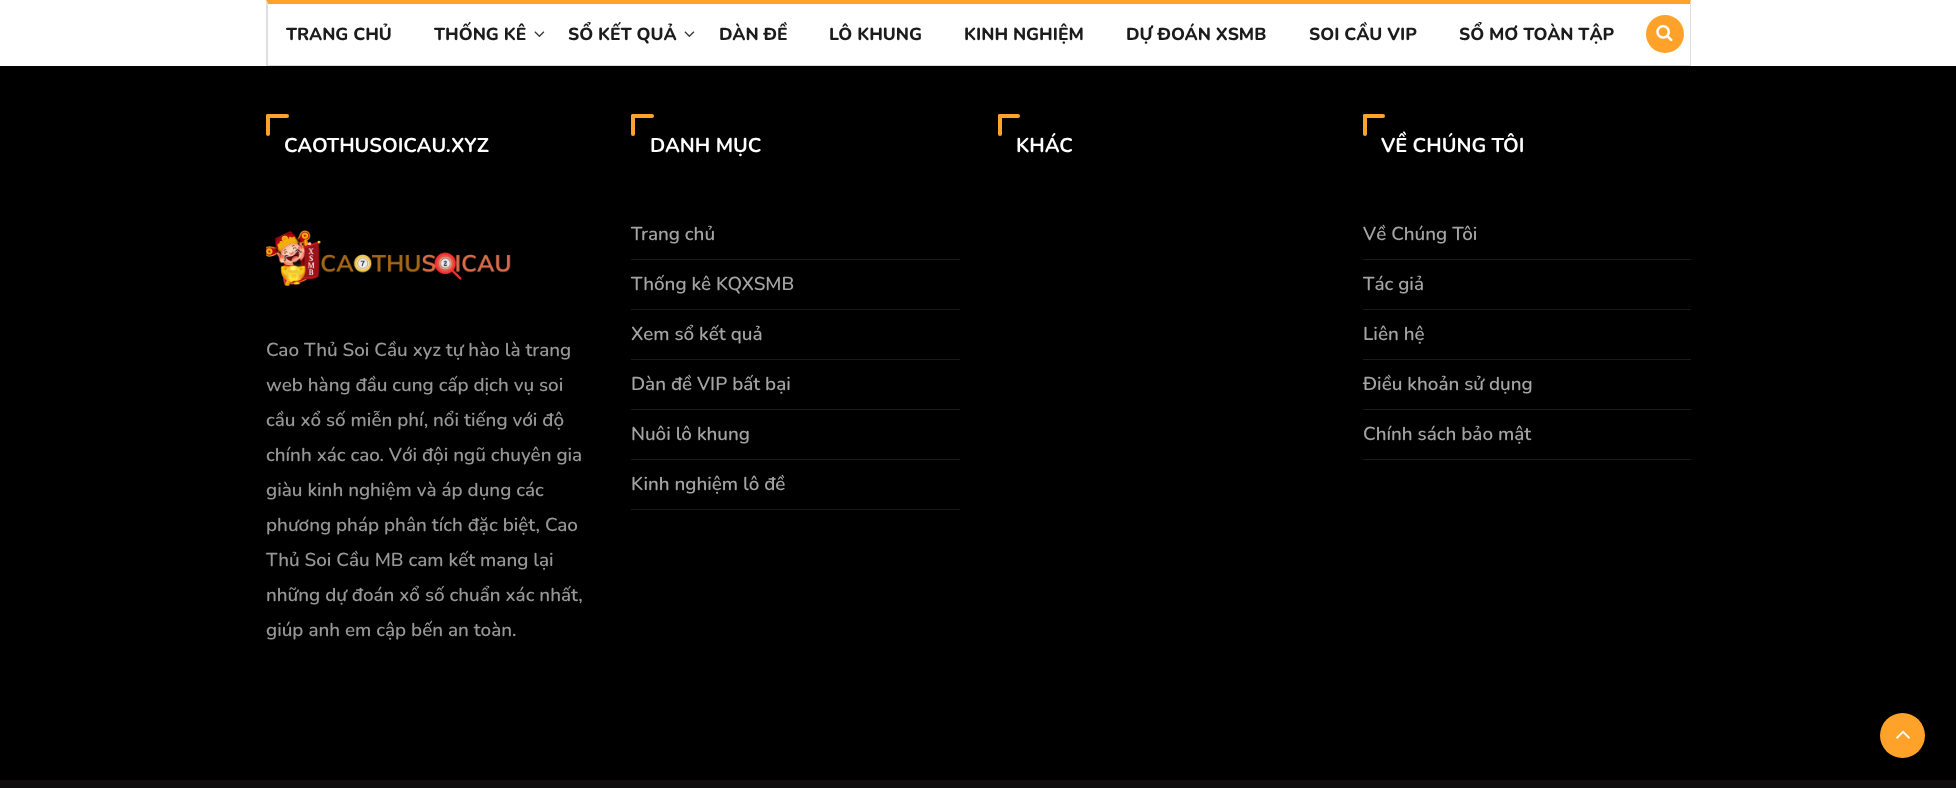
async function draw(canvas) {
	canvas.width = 1956;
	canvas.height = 788;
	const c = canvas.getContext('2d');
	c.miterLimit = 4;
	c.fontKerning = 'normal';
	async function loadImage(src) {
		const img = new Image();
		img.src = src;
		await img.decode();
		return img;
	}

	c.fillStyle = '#000';
	c.fillRect(0, 0, 1956, 788);
	c.fillStyle = '#fff';
	c.fillRect(0, 0, 1956, 66);
	c.fillStyle = '#fea22a';
	c.beginPath();
	c.moveTo(266, 0);
	c.lineTo(1691, 0);
	c.lineTo(1690, 4);
	c.lineTo(268, 4);
	c.closePath();
	c.fill();
	c.fillStyle = '#dedede';
	c.beginPath();
	c.moveTo(1691, 0);
	c.lineTo(1691, 66);
	c.lineTo(1690, 65);
	c.lineTo(1690, 4);
	c.closePath();
	c.fill();
	c.fillRect(266, 65, 1425, 1);
	c.beginPath();
	c.moveTo(266, 66);
	c.lineTo(266, 0);
	c.lineTo(268, 4);
	c.lineTo(268, 65);
	c.closePath();
	c.fill();
	c.font = '800 17.5px Nunito';
	c.fillStyle = '#1c1c1c';
	c.fillText('TRANG CHỦ', 286, 40);
	c.fillText('THỐNG KÊ', 434, 40);
	c.drawImage(await loadImage('img1.png'), 534, 31, 11, 6);
	c.fillText('SỔ KẾT QUẢ', 568, 40);
	c.drawImage(await loadImage('img1.png'), 684, 31, 11, 6);
	for (const [text, x, y] of [
		['DÀN ĐỀ', 719, 40],
		['LÔ KHUNG', 829, 40],
		['KINH NGHIỆM', 964, 40],
		['DỰ ĐOÁN XSMB', 1126, 40],
		['SOI CẦU VIP', 1309, 40],
		['SỔ MƠ TOÀN TẬP', 1459, 40],
	]) {
		c.fillText(text, x, y);
	}
	c.fillStyle = '#fea22a';
	c.beginPath();
	c.arc(1665, 34, 19, 0, 2 * Math.PI);
	c.fill();
	c.drawImage(await loadImage('img2.png'), 1656, 25, 17, 17);
	c.beginPath();
	c.roundRect(266, 114, 4, 22, 2);
	c.fill();
	c.beginPath();
	c.roundRect(266, 114, 23, 4, 2);
	c.fill();
	c.font = 'bold 20px Nunito';
	c.fillStyle = '#fff';
	c.fillText('CAOTHUSOICAU.XYZ', 284, 152);
	c.drawImage(await loadImage('img3.png'), 266, 230, 245, 56);
	c.font = '600 18.75px Nunito';
	c.fillStyle = '#969696';
	for (const [text, x, y] of [
		['Cao Thủ Soi Cầu xyz tự hào là trang', 266, 356],
		['web hàng đầu cung cấp dịch vụ soi', 266, 391],
		['cầu xổ số miễn phí, nổi tiếng với độ', 266, 426],
		['chính xác cao. Với đội ngũ chuyên gia', 266, 461],
		['giàu kinh nghiệm và áp dụng các', 266, 496],
		['phương pháp phân tích đặc biệt, Cao', 266, 531],
		['Thủ Soi Cầu MB cam kết mang lại', 266, 566],
		['những dự đoán xổ số chuẩn xác nhất,', 266, 601],
		['giúp anh em cập bến an toàn.', 266, 636],
	]) {
		c.fillText(text, x, y);
	}
	c.fillStyle = '#fea22a';
	c.beginPath();
	c.roundRect(631, 114, 4, 22, 2);
	c.fill();
	c.beginPath();
	c.roundRect(631, 114, 23, 4, 2);
	c.fill();
	c.font = 'bold 20px Nunito';
	c.fillStyle = '#fff';
	c.fillText('DANH MỤC', 650, 152);
	c.fillStyle = '#1a1a1a';
	c.fillRect(631, 259, 329, 1);
	c.font = '600 18.75px Nunito';
	c.fillStyle = '#a3a3a3';
	c.fillText('Trang chủ', 631, 240);
	c.fillStyle = '#1a1a1a';
	c.fillRect(631, 309, 329, 1);
	c.fillStyle = '#a3a3a3';
	c.fillText('Thống kê KQXSMB', 631, 290);
	c.fillStyle = '#1a1a1a';
	c.fillRect(631, 359, 329, 1);
	c.fillStyle = '#a3a3a3';
	c.fillText('Xem sổ kết quả', 631, 340);
	c.fillStyle = '#1a1a1a';
	c.fillRect(631, 409, 329, 1);
	c.fillStyle = '#a3a3a3';
	c.fillText('Dàn đề VIP bất bại', 631, 390);
	c.fillStyle = '#1a1a1a';
	c.fillRect(631, 459, 329, 1);
	c.fillStyle = '#a3a3a3';
	c.fillText('Nuôi lô khung', 631, 440);
	c.fillStyle = '#1a1a1a';
	c.fillRect(631, 509, 329, 1);
	c.fillStyle = '#a3a3a3';
	c.fillText('Kinh nghiệm lô đề', 631, 490);
	c.fillStyle = '#fea22a';
	c.beginPath();
	c.roundRect(998, 114, 4, 22, 2);
	c.fill();
	c.beginPath();
	c.roundRect(998, 114, 22, 4, 2);
	c.fill();
	c.font = 'bold 20px Nunito';
	c.fillStyle = '#fff';
	c.fillText('KHÁC', 1016, 152);
	c.fillStyle = '#fea22a';
	c.beginPath();
	c.roundRect(1363, 114, 4, 22, 2);
	c.fill();
	c.beginPath();
	c.roundRect(1363, 114, 22, 4, 2);
	c.fill();
	c.fillStyle = '#fff';
	c.fillText('VỀ CHÚNG TÔI', 1381, 152);
	c.fillStyle = '#1a1a1a';
	c.fillRect(1363, 259, 328, 1);
	c.font = '600 18.75px Nunito';
	c.fillStyle = '#a3a3a3';
	c.fillText('Về Chúng Tôi', 1363, 240);
	c.fillStyle = '#1a1a1a';
	c.fillRect(1363, 309, 328, 1);
	c.fillStyle = '#a3a3a3';
	c.fillText('Tác giả', 1363, 290);
	c.fillStyle = '#1a1a1a';
	c.fillRect(1363, 359, 328, 1);
	c.fillStyle = '#a3a3a3';
	c.fillText('Liên hệ', 1363, 340);
	c.fillStyle = '#1a1a1a';
	c.fillRect(1363, 409, 328, 1);
	c.fillStyle = '#a3a3a3';
	c.fillText('Điều khoản sử dụng', 1363, 390);
	c.fillStyle = '#1a1a1a';
	c.fillRect(1363, 459, 328, 1);
	c.fillStyle = '#a3a3a3';
	c.fillText('Chính sách bảo mật', 1363, 440);
	c.fillStyle = '#0f0d0d';
	c.fillRect(0, 780, 1956, 8);
	c.fillStyle = '#fea22a';
	c.beginPath();
	c.arc(1902.5, 735.5, 22.5, 0, 2 * Math.PI);
	c.fill();
	c.drawImage(await loadImage('img4.png'), 1896, 730, 14, 9);
}

draw(document.querySelector('canvas'));
